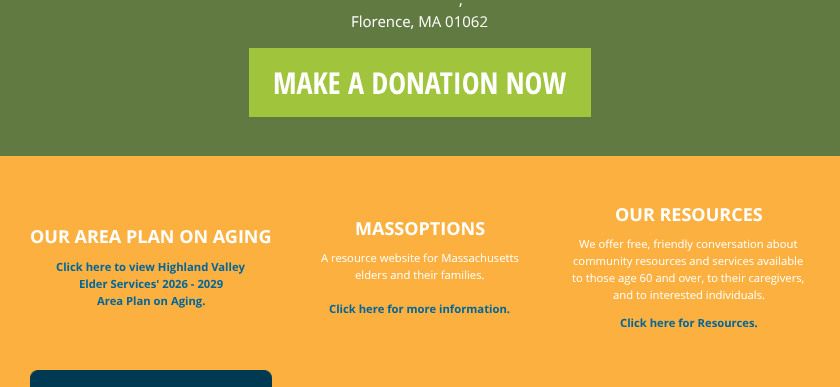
async function draw(canvas) {
	canvas.width = 840;
	canvas.height = 387;
	const c = canvas.getContext('2d');
	c.miterLimit = 4;
	c.fontKerning = 'normal';
	async function loadImage(src) {
		const img = new Image();
		img.src = src;
		await img.decode();
		return img;
	}

	c.fillStyle = '#617a41';
	c.fillRect(0, 0, 840, 387);
	c.font = '15px Open Sans';
	c.fillStyle = '#fff';
	c.fillText(',', 459, 5);
	c.fillText('Florence, MA 01062', 351, 27);
	c.fillStyle = '#a0c43c';
	c.fillRect(249, 48, 342, 69);
	c.font = 'bold 30px Open Sans Condensed';
	c.fillStyle = '#fff';
	c.fillText('MAKE A DONATION NOW', 273, 94);
	c.fillStyle = '#fcb040';
	c.fillRect(0, 156, 840, 231);
	c.font = 'bold 18px Open Sans';
	c.fillStyle = '#fff';
	c.fillText('OUR AREA PLAN ON AGING', 30, 243);
	c.font = 'bold 11.25px Open Sans';
	c.fillStyle = '#069';
	for (const [text, x, y] of [
		['Click here to view Highland Valley', 56, 271],
		['Elder Services\' 2026 - 2029', 79, 288],
		['Area Plan on Aging.', 97, 305],
	]) {
		c.fillText(text, x, y);
	}
	c.font = 'bold 18px Open Sans';
	c.fillStyle = '#fff';
	c.fillText('MASSOPTIONS', 355, 235);
	c.font = '11.25px Open Sans';
	c.fillText('A resource website for Massachusetts', 321, 262);
	c.fillText('elders and their families.', 355, 279);
	c.font = 'bold 11.25px Open Sans';
	c.fillStyle = '#069';
	c.fillText('Click here for more information.', 329, 313);
	c.font = 'bold 18px Open Sans';
	c.fillStyle = '#fff';
	c.fillText('OUR RESOURCES', 615, 221);
	c.font = '11.25px Open Sans';
	for (const [text, x, y] of [
		['We offer free, friendly conversation about', 579, 248],
		['community resources and services available', 573, 265],
		['to those age 60 and over, to their caregivers,', 572, 282],
		['and to interested individuals.', 613, 299],
	]) {
		c.fillText(text, x, y);
	}
	c.font = 'bold 11.25px Open Sans';
	c.fillStyle = '#069';
	c.fillText('Click here for Resources.', 620, 327);
	c.drawImage(await loadImage('img1.png'), 30, 370, 242, 17);
}

draw(document.querySelector('canvas'));
